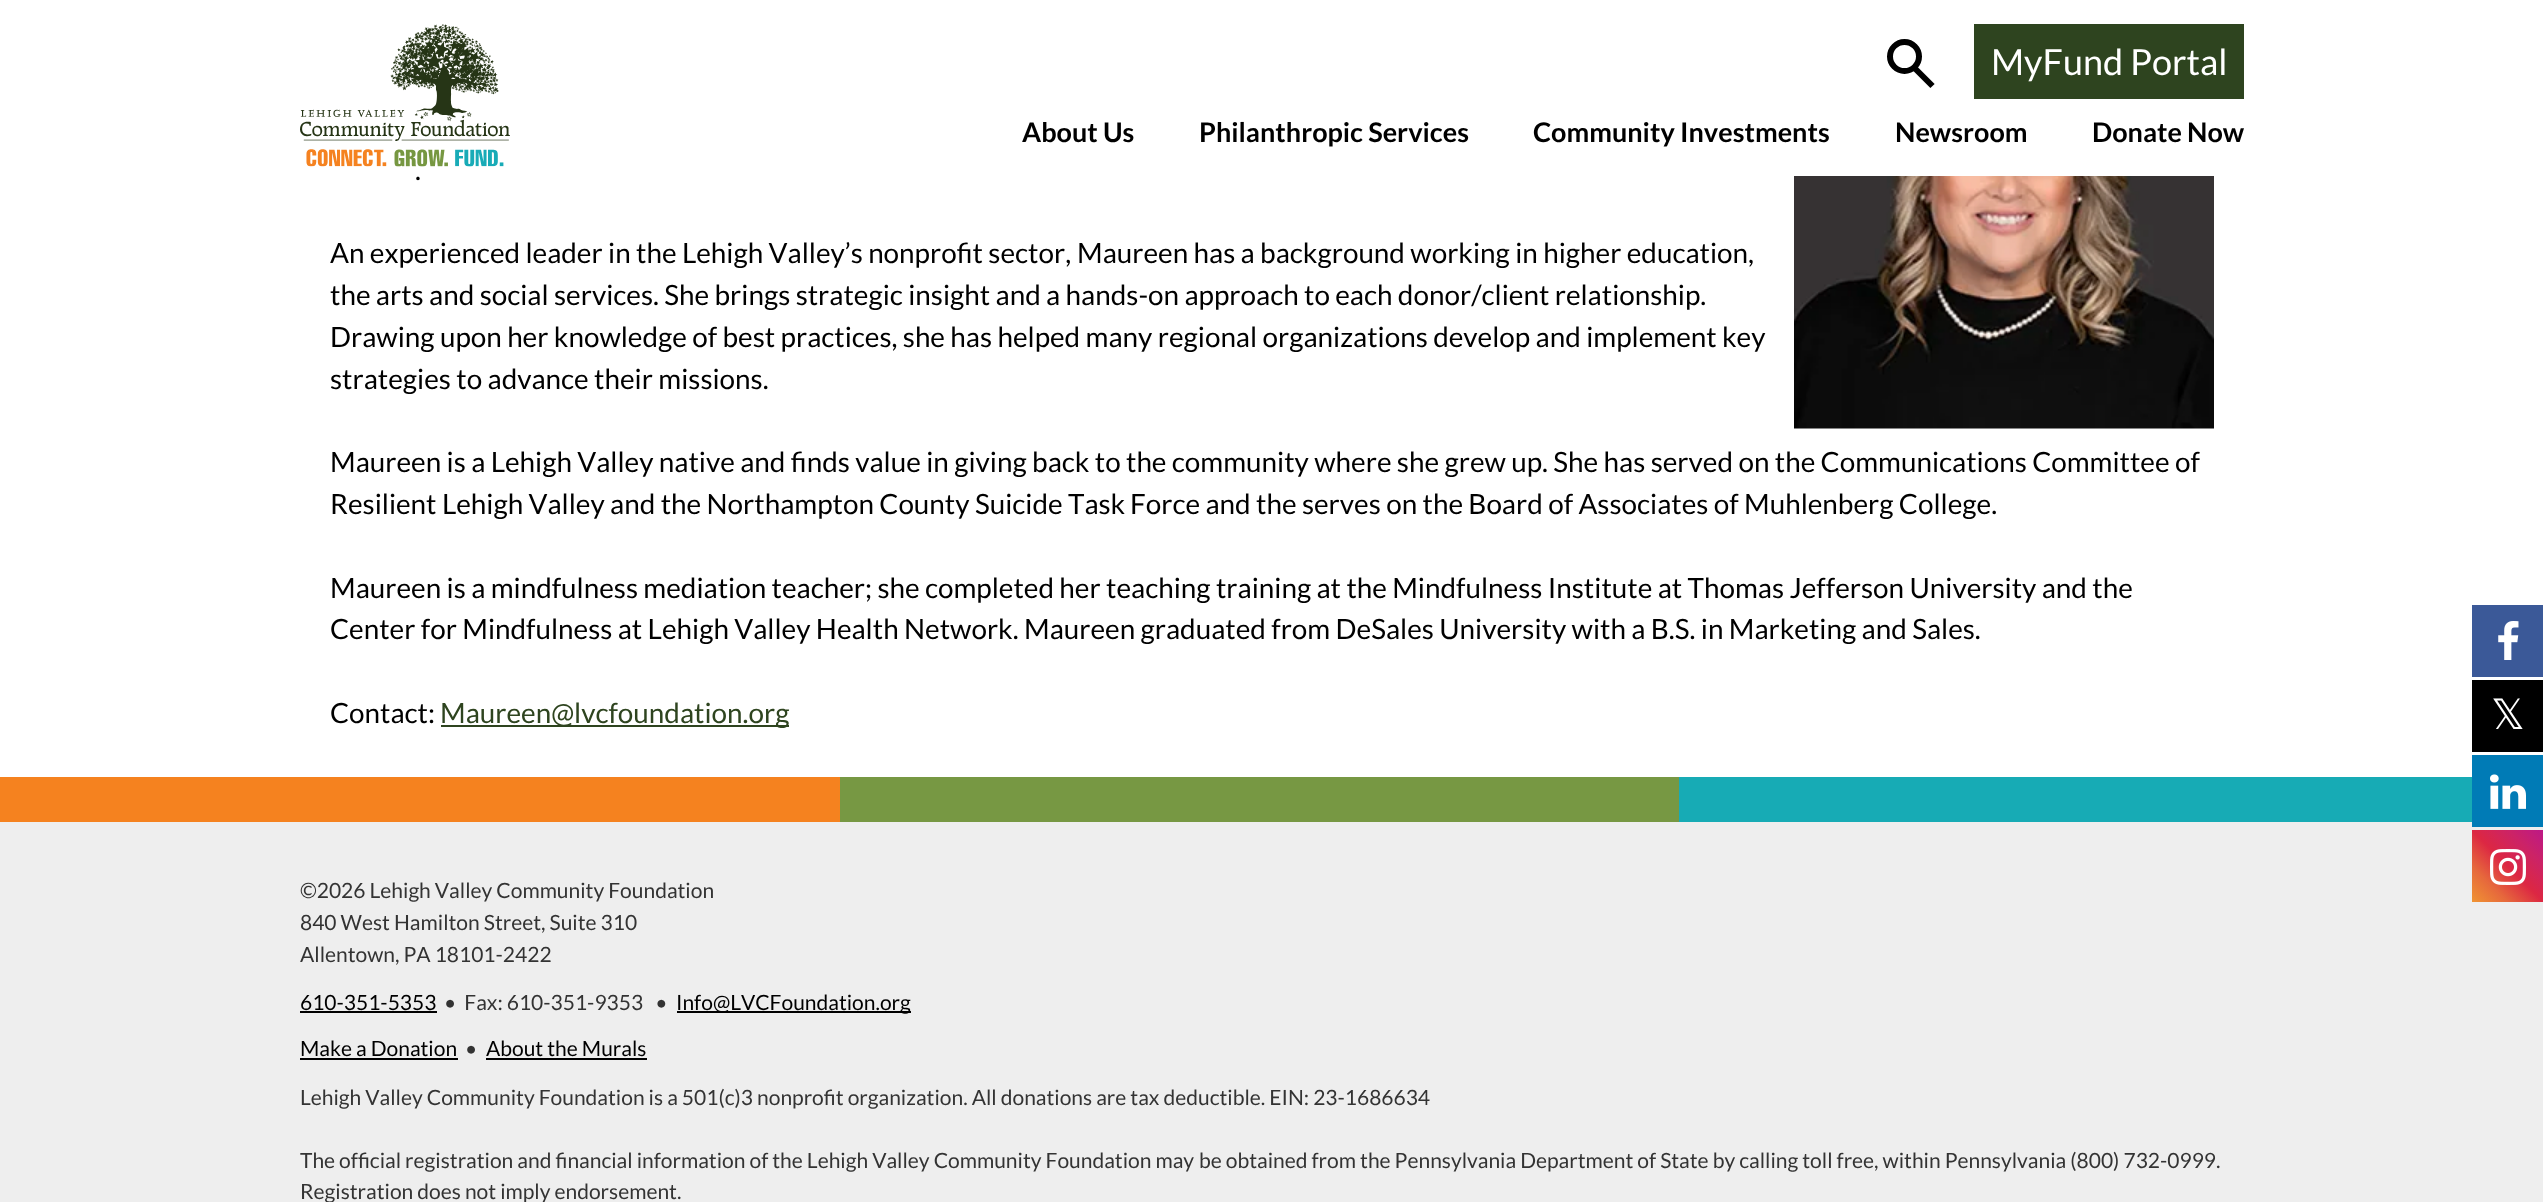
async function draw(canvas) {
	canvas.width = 2543;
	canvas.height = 1202;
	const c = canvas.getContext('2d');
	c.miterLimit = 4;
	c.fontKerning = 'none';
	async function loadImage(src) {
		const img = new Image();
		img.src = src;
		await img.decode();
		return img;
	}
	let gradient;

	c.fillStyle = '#fff';
	c.fillRect(0, 0, 2543, 1202);
	c.drawImage(await loadImage('img1.png'), 300, 24, 210, 143);
	c.beginPath();
	c.arc(1904.5, 56.5, 14.5, 0, 2 * Math.PI);
	c.strokeStyle = '#000';
	c.lineWidth = 6;
	c.stroke();
	c.beginPath();
	c.moveTo(1932.5, 86);
	c.lineTo(1912.5, 66);
	c.stroke();
	c.fillStyle = '#2e441f';
	c.fillRect(1974, 24, 270, 75);
	c.font = '36px Lato';
	c.fillStyle = '#fff';
	c.fillText('MyFund Portal', 1991, 75);
	c.font = 'bold 27px Lato';
	c.fillStyle = '#000';
	for (const [text, x, y] of [
		['About Us', 1022, 142],
		['Philanthropic Services', 1199, 142],
		['Community Investments', 1533, 142],
		['Newsroom', 1895, 142],
		['Donate Now', 2092, 142],
	]) {
		c.fillText(text, x, y);
	}
	c.font = '27.87px Lato';
	c.fillText('.', 415, 180);
	c.drawImage(await loadImage('img2.png'), 1794, 176, 420, 253);
	for (const [text, x, y] of [
		['An experienced leader in the Lehigh Valley’s nonprofit sector,', 330, 263],
		['Maureen has a background working in higher education,', 1077, 263],
		['the arts and social services. She brings strategic insight and a hands-on approach to each donor/client relationship.', 330, 305],
		['Drawing upon her knowledge of best practices, she has helped many regional organizations develop and implement key', 330, 347],
		['strategies to advance their missions.', 330, 389],
		['Maureen is a Lehigh Valley native and finds value in giving back to the community where she grew up. She has served on the Communications Committee of', 330, 472],
		['Resilient Lehigh Valley and the Northampton County Suicide Task', 330, 514],
		['Force and the serves on the Board of Associates of Muhlenberg College.', 1130, 514],
		['Maureen is a mindfulness mediation teacher; she completed her teaching training at the Mindfulness Institute at Thomas Jefferson University and the', 330, 598],
		['Center for Mindfulness at Lehigh Valley Health Network. Maureen graduated from DeSales University with a B.S. in Marketing and Sales.', 330, 639],
		['Contact:', 330, 723],
	]) {
		c.fillText(text, x, y);
	}
	c.fillStyle = '#2e441f';
	c.fillRect(441, 725, 348, 2);
	c.fillText('Maureen@lvcfoundation.org', 440, 723);
	for (const [x, y, w, h, color] of [
		[0, 822, 2543, 380, '#eee'],
		[0, 777, 840, 45, '#f5821f'],
		[840, 777, 839, 45, '#779843'],
		[1679, 777, 793, 45, '#17abb5'],
	]) {
		c.fillStyle = color;
		c.fillRect(x, y, w, h);
	}
	c.font = '21px Lato';
	c.fillStyle = '#333';
	for (const [text, x, y] of [
		['©2026 Lehigh Valley Community Foundation', 300, 898],
		['840 West Hamilton Street, Suite 310', 300, 930],
		['Allentown, PA 18101-2422', 300, 962],
	]) {
		c.fillText(text, x, y);
	}
	c.fillStyle = '#000';
	c.fillText('610-351-5353', 300, 1010);
	c.fillRect(300, 1011, 137, 2);
	c.fillStyle = '#333';
	c.fillText('•  Fax: 610-351-9353   •', 444, 1010);
	c.fillStyle = '#000';
	c.fillRect(677, 1011, 234, 2);
	c.fillText('Info@LVCFoundation.org', 676, 1010);
	c.fillText('Make a Donation', 300, 1056);
	c.fillRect(300, 1058, 158, 2);
	c.fillStyle = '#333';
	c.fillText('•', 465, 1056);
	c.fillStyle = '#000';
	c.fillText('About the Murals', 486, 1056);
	c.fillRect(486, 1058, 161, 2);
	c.fillStyle = '#333';
	for (const [text, x, y] of [
		['Lehigh Valley Community Foundation is a 501(c)3 nonprofit organization. All donations are tax deductible. EIN: 23-1686634', 300, 1105],
		['The official registration and financial information of the Lehigh Valley Community Foundation may', 300, 1168],
		['be obtained from the Pennsylvania Department of State by calling toll free, within Pennsylvania (800) 732-0999.', 1199, 1168],
		['Registration does not imply endorsement.', 300, 1199],
	]) {
		c.fillText(text, x, y);
	}
	c.fillStyle = '#3b5998';
	c.fillRect(2472, 605, 71, 72);
	c.drawImage(await loadImage('img3.png'), 2498, 621, 21, 39);
	c.fillStyle = '#000';
	c.fillRect(2472, 680, 71, 72);
	c.font = '42px DejaVu Sans';
	c.fillStyle = '#fff';
	c.fillText('𝕏', 2491, 729);
	c.fillStyle = '#007bb6';
	c.fillRect(2472, 755, 71, 72);
	c.drawImage(await loadImage('img4.png'), 2490, 774, 36, 35);
	gradient = c.createLinearGradient(2472, 902, 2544, 830);
	gradient.addColorStop(0, '#f09433');
	gradient.addColorStop(0.25, '#e6683c');
	gradient.addColorStop(0.5, '#dc2743');
	gradient.addColorStop(0.75, '#cc2366');
	gradient.addColorStop(1, '#bc1888');
	c.fillStyle = gradient;
	c.fillRect(2472, 830, 71, 72);
	c.drawImage(await loadImage('img5.png'), 2490, 849, 36, 36);
}

draw(document.querySelector('canvas'));
